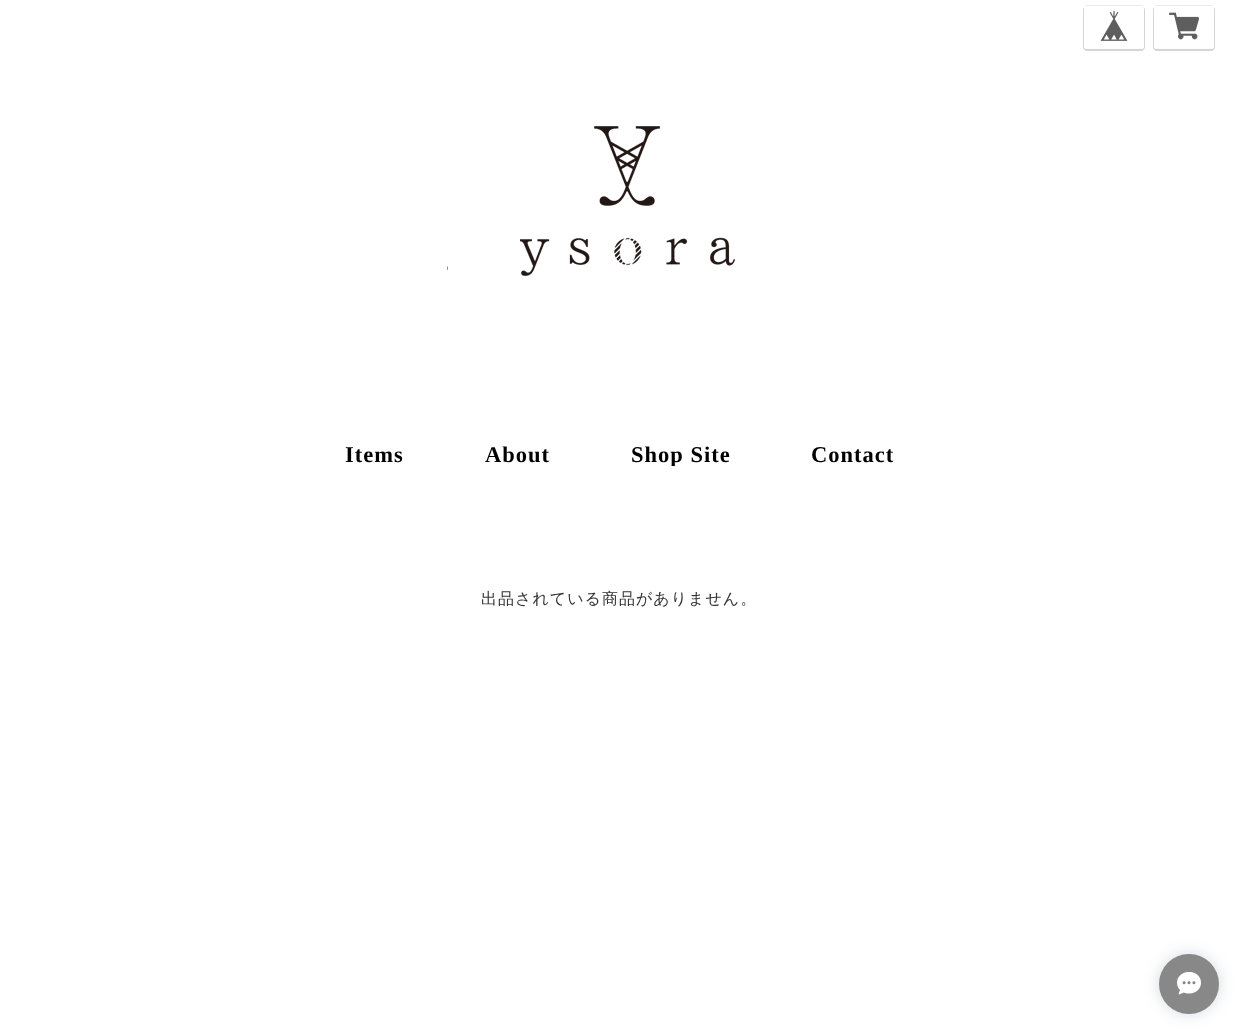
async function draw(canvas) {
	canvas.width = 1239;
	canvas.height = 1034;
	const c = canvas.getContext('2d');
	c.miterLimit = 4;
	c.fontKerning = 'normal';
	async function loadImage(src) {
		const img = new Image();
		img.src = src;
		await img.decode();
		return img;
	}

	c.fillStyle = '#fff';
	c.fillRect(0, 0, 1239, 1034);
	c.fillStyle = '#eaeaea';
	c.beginPath();
	c.moveTo(1087, 5);
	c.bezierCurveTo(1085, 5, 1084, 7, 1084, 9);
	c.bezierCurveTo(1084, 7, 1085, 6, 1087, 6);
	c.lineTo(1141, 6);
	c.bezierCurveTo(1143, 6, 1144, 7, 1144, 9);
	c.bezierCurveTo(1144, 7, 1143, 5, 1141, 5);
	c.closePath();
	c.fill();
	c.fillStyle = '#d5d5d5';
	c.beginPath();
	c.moveTo(1087, 6);
	c.bezierCurveTo(1085, 6, 1083, 8, 1083, 10);
	c.lineTo(1083, 47);
	c.bezierCurveTo(1083, 49, 1085, 51, 1087, 51);
	c.lineTo(1141, 51);
	c.bezierCurveTo(1143, 51, 1145, 49, 1145, 47);
	c.lineTo(1145, 10);
	c.bezierCurveTo(1145, 8, 1143, 6, 1141, 6);
	c.bezierCurveTo(1143, 6, 1144, 7, 1144, 9);
	c.lineTo(1144, 46);
	c.bezierCurveTo(1144, 48, 1143, 49, 1141, 49);
	c.lineTo(1087, 49);
	c.bezierCurveTo(1085, 49, 1084, 48, 1084, 46);
	c.lineTo(1084, 9);
	c.bezierCurveTo(1084, 7, 1085, 6, 1087, 6);
	c.closePath();
	c.fill();
	c.fillStyle = '#fff';
	c.beginPath();
	c.roundRect(1084, 6, 60, 43, 3);
	c.fill();
	c.drawImage(await loadImage('img1.png'), 1100, 11, 28, 30);
	c.fillStyle = '#eaeaea';
	c.beginPath();
	c.moveTo(1157, 5);
	c.bezierCurveTo(1155, 5, 1154, 7, 1154, 9);
	c.bezierCurveTo(1154, 7, 1155, 6, 1157, 6);
	c.lineTo(1211, 6);
	c.bezierCurveTo(1213, 6, 1214, 7, 1214, 9);
	c.bezierCurveTo(1214, 7, 1213, 5, 1211, 5);
	c.closePath();
	c.fill();
	c.fillStyle = '#d5d5d5';
	c.beginPath();
	c.moveTo(1157, 6);
	c.bezierCurveTo(1155, 6, 1153, 8, 1153, 10);
	c.lineTo(1153, 47);
	c.bezierCurveTo(1153, 49, 1155, 51, 1157, 51);
	c.lineTo(1211, 51);
	c.bezierCurveTo(1213, 51, 1215, 49, 1215, 47);
	c.lineTo(1215, 10);
	c.bezierCurveTo(1215, 8, 1213, 6, 1211, 6);
	c.bezierCurveTo(1213, 6, 1214, 7, 1214, 9);
	c.lineTo(1214, 46);
	c.bezierCurveTo(1214, 48, 1213, 49, 1211, 49);
	c.lineTo(1157, 49);
	c.bezierCurveTo(1155, 49, 1154, 48, 1154, 46);
	c.lineTo(1154, 9);
	c.bezierCurveTo(1154, 7, 1155, 6, 1157, 6);
	c.closePath();
	c.fill();
	c.fillStyle = '#fff';
	c.beginPath();
	c.roundRect(1154, 6, 60, 43, 3);
	c.fill();
	c.drawImage(await loadImage('img2.png'), 1169, 12, 30, 28);
	c.drawImage(await loadImage('img3.png'), 447, 126, 288, 150);
	c.letterSpacing = '1px';
	c.font = 'bold 22.5px Liberation Serif';
	c.fillStyle = '#000';
	c.fillText('Items', 345, 462);
	c.fillText('About', 485, 462);
	c.save();
	c.beginPath();
	c.rect(623, 444, 115, 22);
	c.clip();
	c.fillText('Shop Site', 631, 462);
	c.restore();
	c.fillText('Contact', 811, 462);
	c.font = '500 16px WenQuanYi Zen Hei';
	c.fillStyle = '#333';
	c.fillText('出品されている商品がありません。', 481, 604);
	c.fillStyle = '#33425833';
	c.filter = 'blur(7.5px)';
	c.beginPath();
	c.roundRect(1159, 954, 60, 60, 30);
	c.fill();
	c.filter = 'none';
	c.fillStyle = '#888';
	c.beginPath();
	c.arc(1189, 984, 30, 0, 2 * Math.PI);
	c.fill();
	c.drawImage(await loadImage('img4.png'), 1177, 971, 24, 24);
}

draw(document.querySelector('canvas'));
